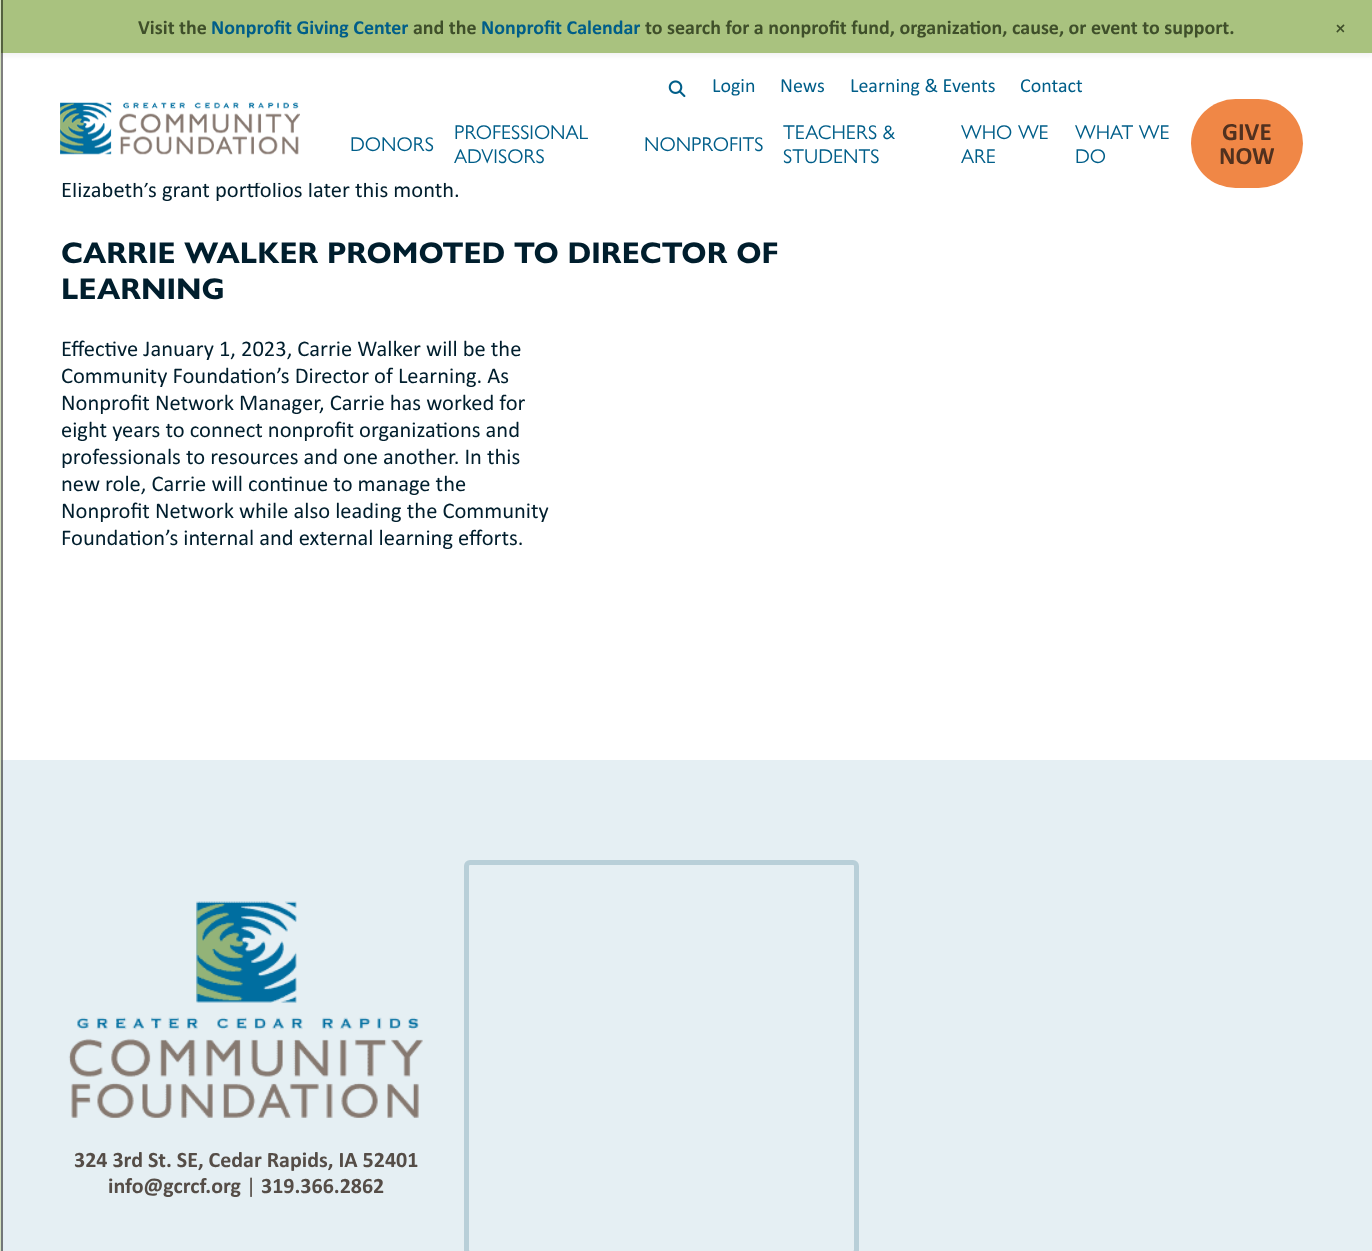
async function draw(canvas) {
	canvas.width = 1372;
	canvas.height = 1251;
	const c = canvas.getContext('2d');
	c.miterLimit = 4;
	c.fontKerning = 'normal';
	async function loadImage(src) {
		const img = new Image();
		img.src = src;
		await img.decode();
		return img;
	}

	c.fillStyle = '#fff';
	c.fillRect(0, 0, 1372, 1251);
	c.fillStyle = '#0000000d';
	c.filter = 'blur(2.5px)';
	c.beginPath();
	c.rect(0, 4, 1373, 52);
	c.fill();
	c.filter = 'none';
	for (const [x, y, w, h, color] of [
		[1, 0, 1371, 53, '#a9c27f'],
		[1, 760, 1371, 491, '#e5eff3'],
		[1, 0, 2, 1251, '#00000080'],
		[0, 0, 1, 1251, '#d4e1bf'],
	]) {
		c.fillStyle = color;
		c.fillRect(x, y, w, h);
	}
	c.font = 'bold 20px Calibri';
	c.fillStyle = '#3f4f2a';
	c.fillText('Visit the', 138, 34);
	c.fillStyle = '#005e89';
	c.fillText('Nonprofit Giving Center', 211, 34);
	c.fillStyle = '#3f4f2a';
	c.fillText('and the', 413, 34);
	c.fillStyle = '#005e89';
	c.fillText('Nonprofit Calendar', 481, 34);
	c.fillStyle = '#3f4f2a';
	c.fillText('to search for a nonprofit fund, organization, cause, or event to support.', 645, 34);
	c.font = '22.5px Calibri';
	c.save();
	c.translate(1332, 29);
	c.rotate(45 * Math.PI / 180);
	c.fillText('+', 0, 0);
	c.restore();
	c.fillStyle = '#001e2d';
	c.fillText('Elizabeth’s grant portfolios later this month.', 61, 197);
	c.fillStyle = '#fffffff0';
	c.fillRect(63, 181, 384, 2);
	c.drawImage(await loadImage('img1.png'), 668, 80, 18, 18);
	c.font = '20px Calibri';
	c.fillStyle = '#005e89';
	for (const [text, x, y] of [
		['Login', 712, 92],
		['News', 780, 92],
		['Learning & Events', 850, 92],
		['Contact', 1020, 92],
	]) {
		c.fillText(text, x, y);
	}
	c.drawImage(await loadImage('img2.png'), 60, 102, 240, 53);
	c.font = '20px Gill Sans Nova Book';
	for (const [text, x, y] of [
		['DONORS', 350, 151],
		['PROFESSIONAL', 454, 139],
		['ADVISORS', 454, 163],
		['NONPROFITS', 644, 151],
		['TEACHERS &', 783, 139],
		['STUDENTS', 783, 163],
		['WHO WE', 961, 139],
		['ARE', 961, 163],
		['WHAT WE', 1075, 139],
		['DO', 1075, 163],
	]) {
		c.fillText(text, x, y);
	}
	c.fillStyle = '#f08746';
	c.beginPath();
	c.roundRect(1191, 99, 112, 89, 44.5);
	c.fill();
	c.font = 'bold 25px Calibri';
	c.fillStyle = '#51311f';
	c.fillText('GIVE', 1222, 140);
	c.fillText('NOW', 1219, 164);
	c.font = 'bold 30px Gill Sans Nova Book';
	c.fillStyle = '#001e2d';
	c.fillText('CARRIE WALKER PROMOTED TO DIRECTOR OF', 61, 263);
	c.fillText('LEARNING', 61, 299);
	c.font = '22.5px Calibri';
	for (const [text, x, y] of [
		['Effective January 1, 2023, Carrie Walker will be the', 61, 356],
		['Community Foundation’s Director of Learning. As', 61, 383],
		['Nonprofit Network Manager, Carrie has worked for', 61, 410],
		['eight years to connect nonprofit organizations and', 61, 437],
		['professionals to resources and one another. In this', 61, 464],
		['new role, Carrie will continue to manage the', 61, 491],
		['Nonprofit Network while also leading the Community', 61, 518],
		['Foundation’s internal and external learning efforts.', 61, 545],
	]) {
		c.fillText(text, x, y);
	}
	c.drawImage(await loadImage('img3.png'), 68, 901, 355, 217);
	c.font = 'bold 22px Calibri';
	c.fillStyle = '#554d47';
	c.fillText('324 3rd St. SE, Cedar Rapids, IA 52401', 74, 1167);
	c.fillText('info@gcrcf.org', 108, 1193);
	c.font = '22px Calibri';
	c.fillText('|', 246, 1193);
	c.font = 'bold 22px Calibri';
	c.fillText('319.366.2862', 261, 1193);
	c.beginPath();
	c.roundRect(466.5, 862.5, 390, 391, 3.5);
	c.strokeStyle = '#b8cfd8';
	c.lineWidth = 5;
	c.stroke();
}

draw(document.querySelector('canvas'));
